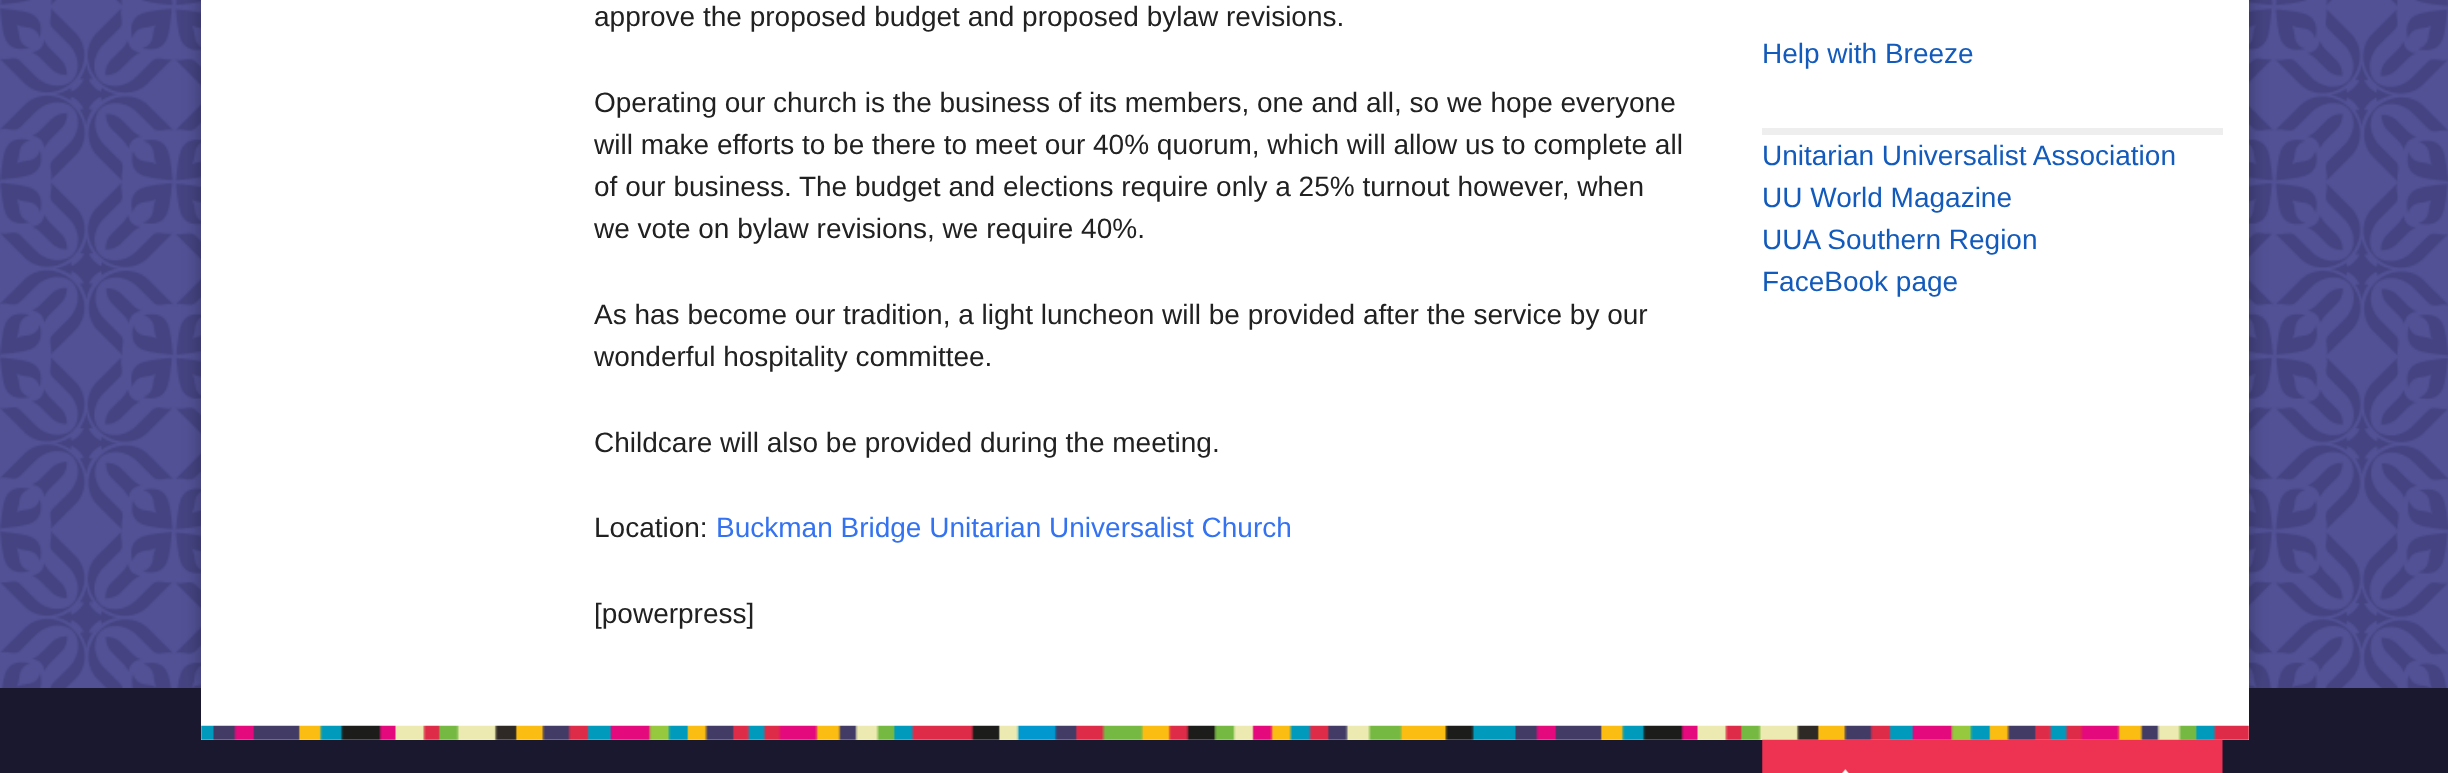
async function draw(canvas) {
	canvas.width = 2448;
	canvas.height = 773;
	const c = canvas.getContext('2d');
	c.miterLimit = 4;
	c.fontKerning = 'normal';
	async function loadImage(src) {
		const img = new Image();
		img.src = src;
		await img.decode();
		return img;
	}

	c.fillStyle = '#fff';
	c.fillRect(0, 0, 2448, 773);
	c.drawImage(await loadImage('img1.png'), 0, 0, 2448, 688);
	c.fillStyle = '#0000004d';
	c.filter = 'blur(9px)';
	c.beginPath();
	c.rect(201, -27, 2048, 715);
	c.fill();
	c.filter = 'none';
	c.fillStyle = '#fff';
	c.fillRect(201, 0, 2048, 688);
	c.font = '28px Liberation Sans';
	c.fillStyle = '#212121';
	for (const [text, x, y] of [
		['approve the proposed budget and proposed bylaw revisions.', 594, 26],
		['Operating our church is the business of its members, one and all, so we hope everyone', 594, 112],
		['will make efforts to be there to meet our 40% quorum, which will allow us to complete all', 594, 154],
		['of our business. The budget and elections require only a 25% turnout however, when', 594, 196],
		['we vote on bylaw revisions, we require 40%.', 594, 238],
		['As has become our tradition, a light luncheon will be provided after the service by our', 594, 324],
		['wonderful hospitality committee.', 594, 366],
		['Childcare will also be provided during the meeting.', 594, 452],
		['Location:', 594, 537],
	]) {
		c.fillText(text, x, y);
	}
	c.fillStyle = '#3372f0';
	c.fillText('Buckman Bridge Unitarian Universalist Church', 716, 537);
	c.fillStyle = '#212121';
	c.fillText('[powerpress]', 594, 623);
	c.fillStyle = '#125abb';
	c.fillText('Help with Breeze', 1762, 63);
	c.fillStyle = '#eee';
	c.fillRect(1762, 128, 461, 7);
	c.fillStyle = '#125abb';
	for (const [text, x, y] of [
		['Unitarian Universalist Association', 1762, 165],
		['UU World Magazine', 1762, 207],
		['UUA Southern Region', 1762, 249],
		['FaceBook page', 1762, 291],
	]) {
		c.fillText(text, x, y);
	}
	c.fillStyle = '#19182f';
	c.fillRect(0, 688, 2448, 85);
	c.fillStyle = '#fff';
	c.fillRect(201, 688, 2048, 52);
	c.drawImage(await loadImage('img2.png'), 201, 725, 2048, 15);
	c.drawImage(await loadImage('img3.png'), 1762, 739, 461, 34);
}

draw(document.querySelector('canvas'));
